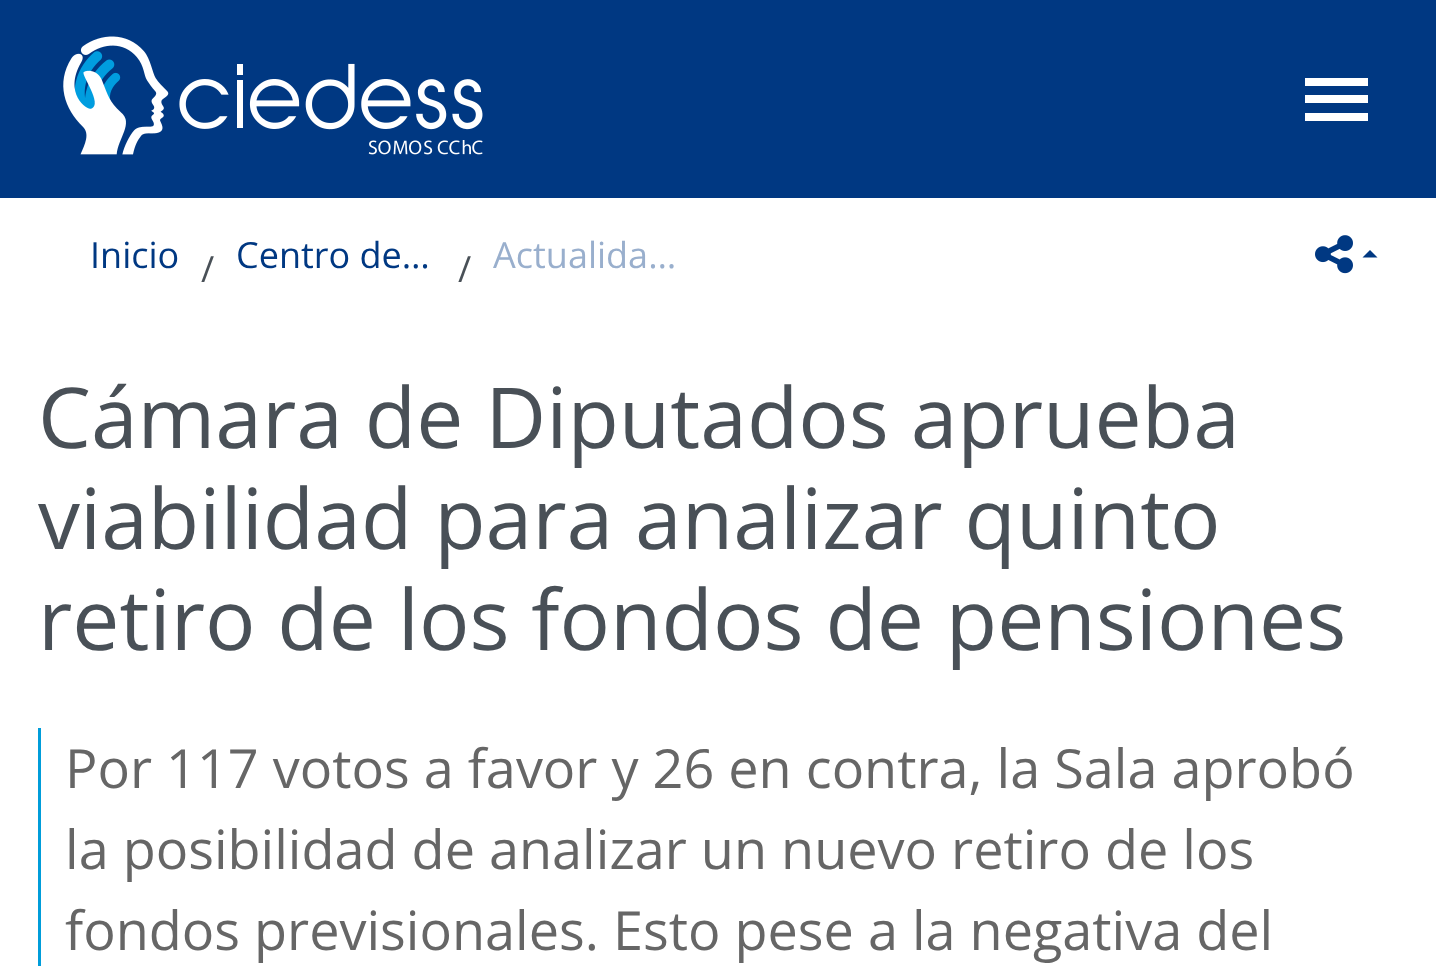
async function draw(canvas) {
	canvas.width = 1436;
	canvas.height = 966;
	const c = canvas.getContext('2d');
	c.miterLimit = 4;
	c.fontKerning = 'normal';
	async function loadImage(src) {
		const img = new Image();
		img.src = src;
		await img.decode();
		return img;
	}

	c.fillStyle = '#fff';
	c.fillRect(0, 0, 1436, 966);
	c.fillStyle = '#003882';
	c.fillRect(0, 0, 1436, 198);
	c.drawImage(await loadImage('img1.png'), 63, 36, 420, 119);
	for (const [x, y, w, h, color] of [
		[1305, 78, 63, 8, '#fff'],
		[1305, 95, 63, 8, '#fff'],
		[1305, 113, 63, 8, '#fff'],
	]) {
		c.fillStyle = color;
		c.fillRect(x, y, w, h);
	}
	c.font = '36px Open Sans';
	c.fillStyle = '#003882';
	c.fillText('Inicio', 90, 268);
	c.fillStyle = '#495057';
	c.fillText('/', 201, 282);
	c.fillStyle = '#003882';
	c.fillText('Centro de…', 236, 268);
	c.fillStyle = '#495057';
	c.fillText('/', 458, 282);
	c.fillStyle = '#99afcd';
	c.fillText('Actualida…', 493, 268);
	c.drawImage(await loadImage('img2.png'), 1315, 235, 38, 39);
	c.fillStyle = '#003882';
	c.beginPath();
	c.moveTo(1377.5, 257.5);
	c.lineTo(1362.5, 257.5);
	c.lineTo(1370, 250);
	c.closePath();
	c.fill();
	c.font = '84px Open Sans';
	c.fillStyle = '#495057';
	for (const [text, x, y] of [
		['Cámara de Diputados aprueba', 38, 448],
		['viabilidad para analizar quinto', 38, 549],
		['retiro de los fondos de pensiones', 38, 650],
	]) {
		c.fillText(text, x, y);
	}
	c.fillStyle = '#009dda';
	c.fillRect(38, 728, 3, 238);
	c.font = '54px Open Sans';
	c.fillStyle = '#666';
	for (const [text, x, y] of [
		['Por 117 votos a favor y 26 en contra, la Sala aprobó', 65, 788],
		['la posibilidad de analizar un nuevo retiro de los', 65, 869],
		['fondos previsionales. Esto pese a la negativa del', 65, 950],
	]) {
		c.fillText(text, x, y);
	}
}

draw(document.querySelector('canvas'));
